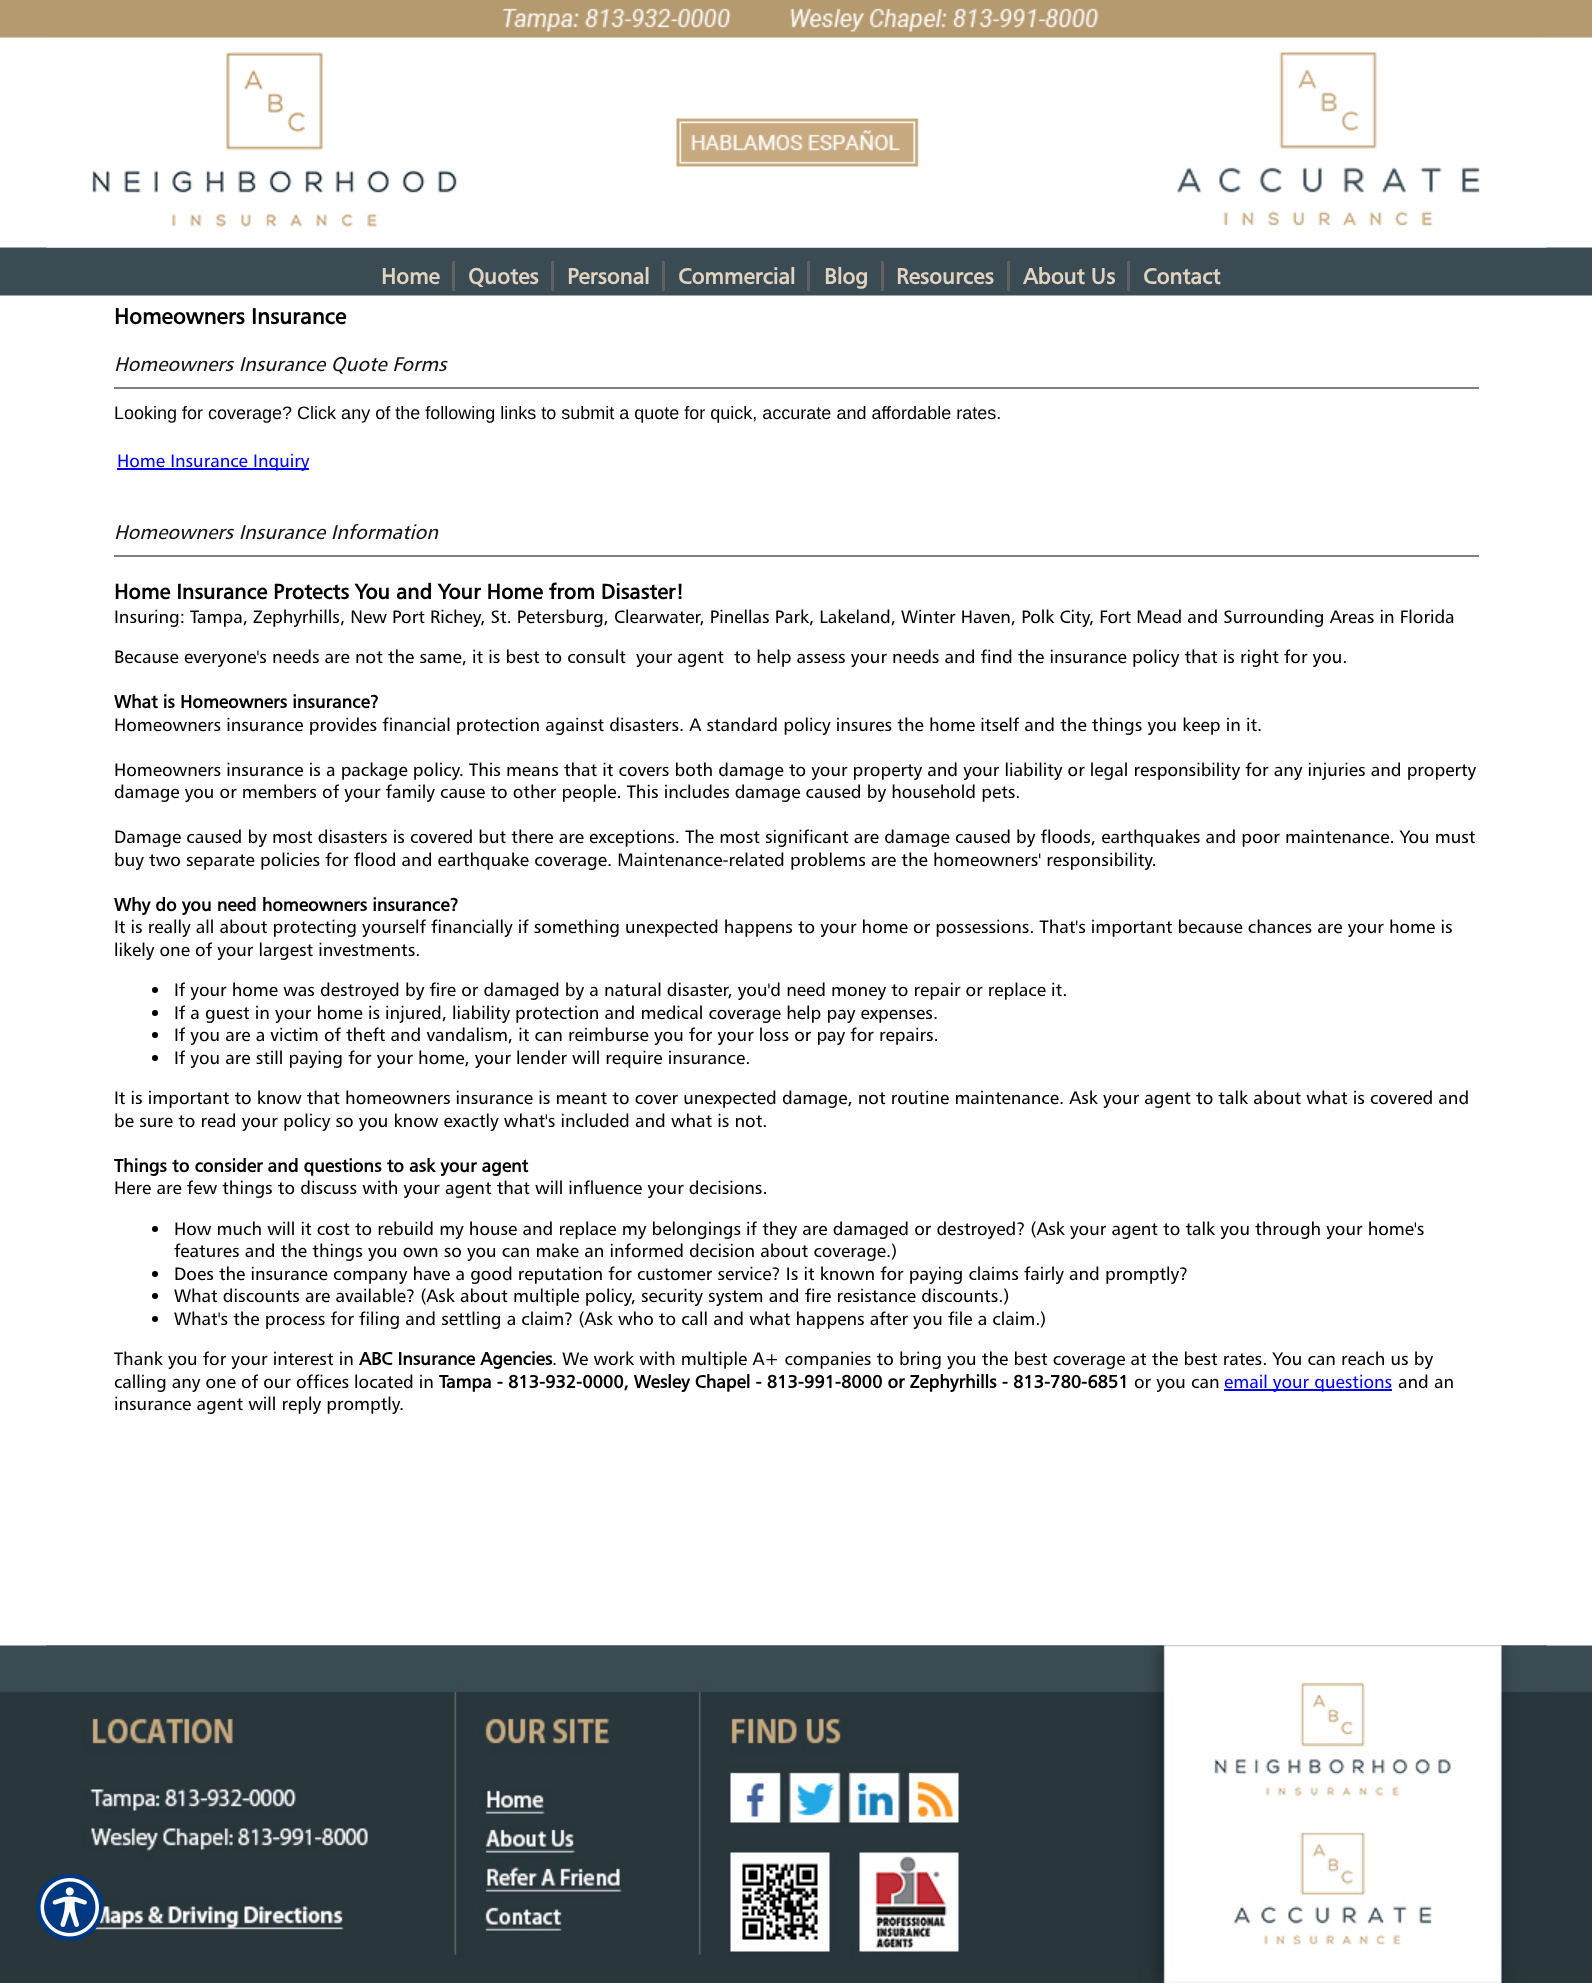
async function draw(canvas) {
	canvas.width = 1592;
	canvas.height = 1983;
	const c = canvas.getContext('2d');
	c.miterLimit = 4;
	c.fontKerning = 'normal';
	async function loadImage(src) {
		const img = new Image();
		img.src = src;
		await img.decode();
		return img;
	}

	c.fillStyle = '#fff';
	c.fillRect(0, 0, 1592, 1983);
	c.drawImage(await loadImage('img1.png'), 0, 0, 1592, 296);
	c.drawImage(await loadImage('img2.png'), 46, 8, 1501, 240);
	c.font = 'bold 22px "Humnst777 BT"';
	c.fillStyle = '#dfd2c1';
	c.fillText('Home', 381, 284);
	c.fillStyle = '#616161';
	c.fillRect(452, 261, 3, 30);
	c.fillStyle = '#dfd2c1';
	c.fillText('Quotes', 468, 284);
	c.fillStyle = '#616161';
	c.fillRect(551, 261, 3, 30);
	c.fillStyle = '#dfd2c1';
	c.fillText('Personal', 567, 284);
	c.fillStyle = '#616161';
	c.fillRect(662, 261, 3, 30);
	c.fillStyle = '#dfd2c1';
	c.fillText('Commercial', 678, 284);
	c.fillStyle = '#616161';
	c.fillRect(807, 261, 3, 30);
	c.fillStyle = '#dfd2c1';
	c.fillText('Blog', 824, 284);
	c.fillStyle = '#616161';
	c.fillRect(881, 261, 3, 30);
	c.fillStyle = '#dfd2c1';
	c.fillText('Resources', 896, 284);
	c.fillStyle = '#616161';
	c.fillRect(1007, 261, 3, 30);
	c.fillStyle = '#dfd2c1';
	c.fillText('About Us', 1023, 284);
	c.fillStyle = '#616161';
	c.fillRect(1127, 261, 3, 30);
	c.fillStyle = '#dfd2c1';
	c.fillText('Contact', 1143, 284);
	c.fillStyle = '#000';
	c.fillText('Homeowners Insurance', 114, 324);
	c.fillStyle = '#808080';
	c.fillRect(114, 387, 1365, 2);
	c.font = 'italic 20px "Humnst777 BT"';
	c.fillStyle = '#151515';
	c.fillText('Homeowners Insurance Quote Forms', 114, 371);
	c.font = '18px Liberation Sans';
	c.fillStyle = '#000';
	c.fillText('Looking for coverage? Click any of the following links to submit a quote for quick, accurate and affordable rates.', 114, 419);
	c.fillStyle = '#00f';
	c.fillRect(117, 468, 192, 2);
	c.font = '18px "Humnst777 BT"';
	c.fillText('Home Insurance Inquiry', 117, 467);
	c.fillStyle = '#808080';
	c.fillRect(114, 555, 1365, 2);
	c.font = 'italic 20px "Humnst777 BT"';
	c.fillStyle = '#151515';
	c.fillText('Homeowners Insurance Information', 114, 539);
	c.font = 'bold 21.05px "Humnst777 BT"';
	c.fillStyle = '#000';
	c.fillText('Home Insurance Protects You and Your Home from Disaster!', 114, 599);
	c.font = '18px "Humnst777 BT"';
	c.fillText('Insuring: Tampa, Zephyrhills, New Port Richey, St. Petersburg, Clearwater, Pinellas Park, Lakeland, Winter Haven, Polk City, Fort Mead and Surrounding Areas in Florida', 114, 623);
	c.fillText('Because everyone\'s needs are not the same, it is best to consult', 114, 663);
	c.fillText('your agent', 636, 663);
	c.fillText('to help assess your needs and find the insurance policy that is right for you.', 734, 663);
	c.font = 'bold 18px "Humnst777 BT"';
	c.fillText('What is Homeowners insurance?', 114, 708);
	c.font = '18px "Humnst777 BT"';
	for (const [text, x, y] of [
		['Homeowners insurance provides financial protection against disasters. A standard policy insures the home itself and the things you keep in it.', 114, 731],
		['Homeowners insurance is a package policy. This means that it covers both damage to your property and your liability or legal responsibility for any injuries and property', 114, 776],
		['damage you or members of your family cause to other people. This includes damage caused by household pets.', 114, 798],
		['Damage caused by most disasters is covered but there are exceptions. The most significant are damage caused by floods, earthquakes and poor maintenance. You must', 114, 843],
		['buy two separate policies for flood and earthquake coverage. Maintenance-related problems are the homeowners\' responsibility.', 114, 866],
	]) {
		c.fillText(text, x, y);
	}
	c.font = 'bold 18px "Humnst777 BT"';
	c.fillText('Why do you need homeowners insurance?', 114, 911);
	c.font = '18px "Humnst777 BT"';
	c.fillText('It is really all about protecting yourself financially if something unexpected happens to your home or possessions. That\'s important because chances are your home is', 114, 933);
	c.fillText('likely one of your largest investments.', 114, 956);
	c.beginPath();
	c.arc(155, 990, 3, 0, 2 * Math.PI);
	c.fill();
	c.fillText('If your home was destroyed by fire or damaged by a natural disaster, you\'d need money to repair or replace it.', 174, 996);
	c.beginPath();
	c.arc(155, 1013, 3, 0, 2 * Math.PI);
	c.fill();
	c.fillText('If a guest in your home is injured, liability protection and medical coverage help pay expenses.', 174, 1019);
	c.beginPath();
	c.arc(155, 1035, 3, 0, 2 * Math.PI);
	c.fill();
	c.fillText('If you are a victim of theft and vandalism, it can reimburse you for your loss or pay for repairs.', 174, 1041);
	c.beginPath();
	c.arc(155, 1058, 3, 0, 2 * Math.PI);
	c.fill();
	for (const [text, x, y] of [
		['If you are still paying for your home, your lender will require insurance.', 174, 1064],
		['It is important to know that homeowners insurance is meant to cover unexpected damage, not routine maintenance. Ask your agent to talk about what is covered and', 114, 1104],
		['be sure to read your policy so you know exactly what\'s included and what is not.', 114, 1127],
	]) {
		c.fillText(text, x, y);
	}
	c.font = 'bold 18px "Humnst777 BT"';
	c.fillText('Things to consider and questions to ask your agent', 114, 1172);
	c.font = '18px "Humnst777 BT"';
	c.fillText('Here are few things to discuss with your agent that will influence your decisions.', 114, 1194);
	c.beginPath();
	c.arc(155, 1229, 3, 0, 2 * Math.PI);
	c.fill();
	c.fillText('How much will it cost to rebuild my house and replace my belongings if they are damaged or destroyed? (Ask your agent to talk you through your home\'s', 174, 1235);
	c.fillText('features and the things you own so you can make an informed decision about coverage.)', 174, 1257);
	c.beginPath();
	c.arc(155, 1274, 3, 0, 2 * Math.PI);
	c.fill();
	c.fillText('Does the insurance company have a good reputation for customer service? Is it known for paying claims fairly and promptly?', 174, 1280);
	c.beginPath();
	c.arc(155, 1296, 3, 0, 2 * Math.PI);
	c.fill();
	c.fillText('What discounts are available? (Ask about multiple policy, security system and fire resistance discounts.)', 174, 1302);
	c.beginPath();
	c.arc(155, 1319, 3, 0, 2 * Math.PI);
	c.fill();
	c.fillText('What\'s the process for filing and settling a claim? (Ask who to call and what happens after you file a claim.)', 174, 1325);
	c.fillText('Thank you for your interest in', 114, 1365);
	c.font = 'bold 18px "Humnst777 BT"';
	c.fillText('ABC Insurance Agencies', 359, 1365);
	c.font = '18px "Humnst777 BT"';
	c.fillText('. We work with multiple A+ companies to bring you the best coverage at the best rates. You can reach us by', 552, 1365);
	c.fillText('calling any one of our offices located in', 114, 1388);
	c.font = 'bold 18px "Humnst777 BT"';
	c.fillText('Tampa - 813-932-0000, Wesley Chapel - 813-991-8000 or Zephyrhills - 813-780-6851', 439, 1388);
	c.font = '18px "Humnst777 BT"';
	c.fillText('or you can', 1134, 1388);
	c.fillStyle = '#00f';
	c.fillRect(1224, 1389, 168, 2);
	c.fillText('email your questions', 1224, 1388);
	c.fillStyle = '#000';
	c.fillText('and an', 1398, 1388);
	c.fillText('insurance agent will reply promptly.', 114, 1410);
	c.drawImage(await loadImage('img3.png'), 0, 1645, 1592, 338);
	c.drawImage(await loadImage('img4.png'), 46, 1645, 1501, 338);
	c.drawImage(await loadImage('img5.png'), 36, 1874, 68, 67);
}

draw(document.querySelector('canvas'));
